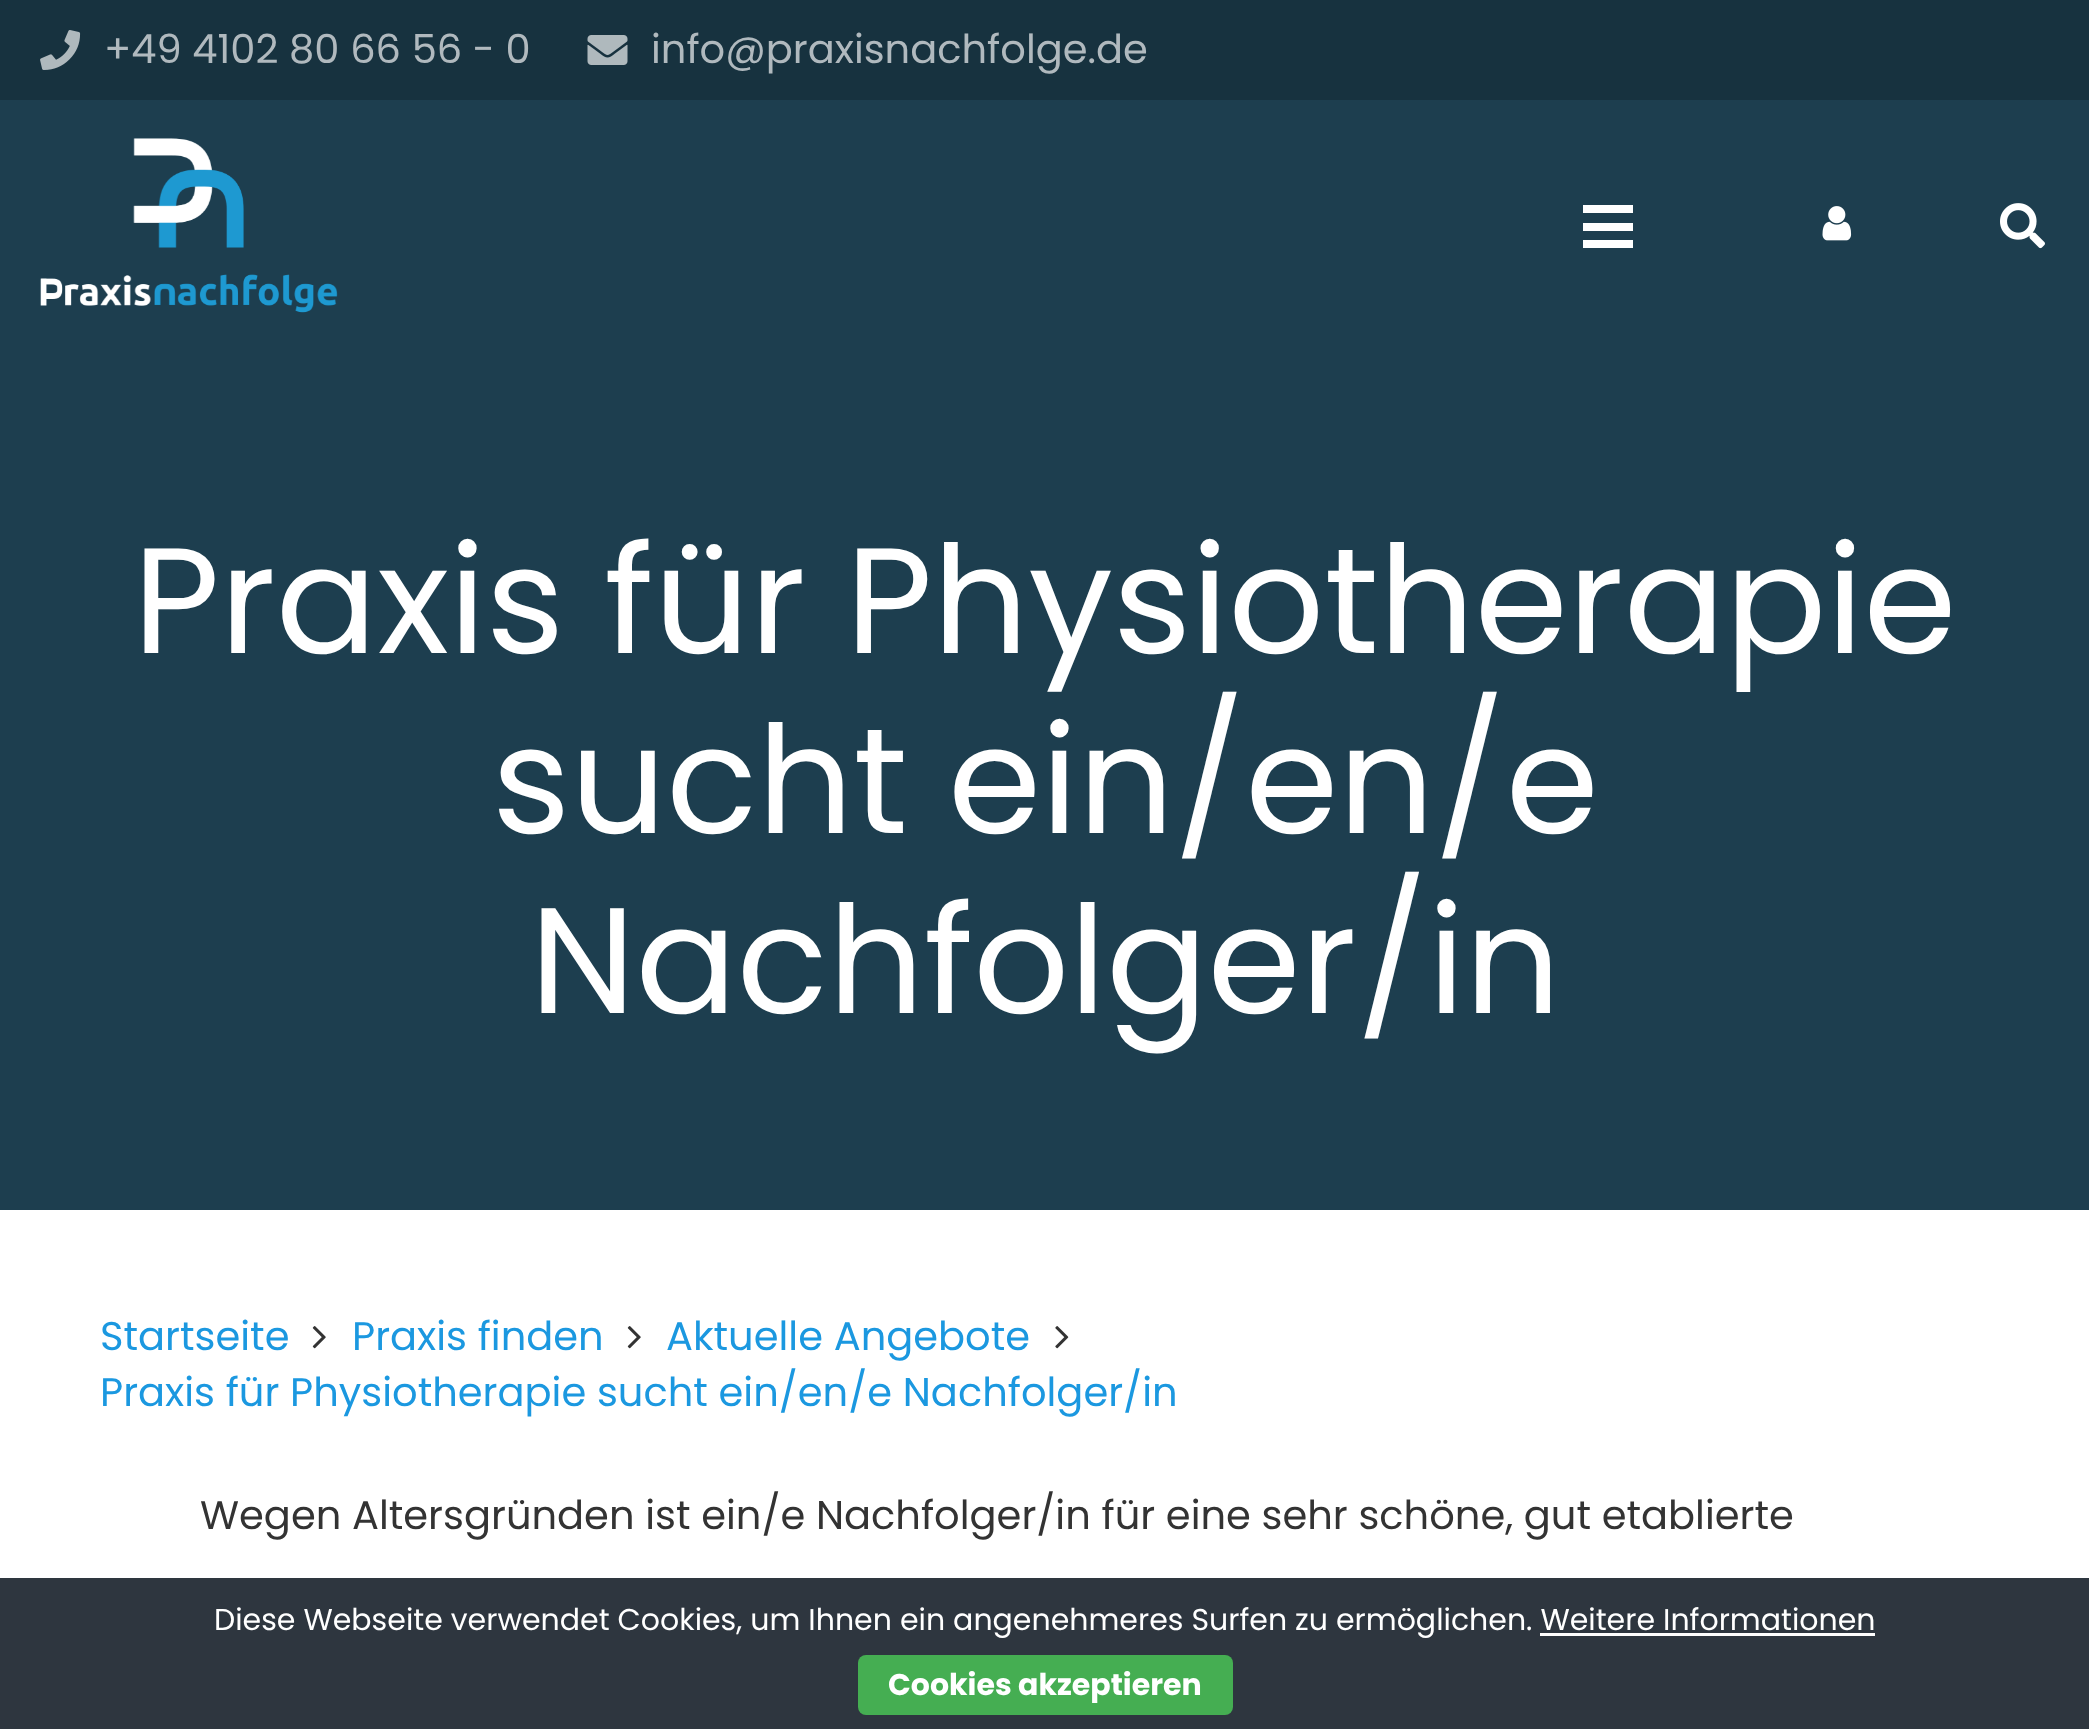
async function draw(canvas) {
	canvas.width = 2089;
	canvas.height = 1729;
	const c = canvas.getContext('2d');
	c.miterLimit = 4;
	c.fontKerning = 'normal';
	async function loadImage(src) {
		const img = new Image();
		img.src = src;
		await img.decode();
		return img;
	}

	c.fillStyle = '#fff';
	c.fillRect(0, 0, 2089, 1729);
	c.fillStyle = '#17323f';
	c.fillRect(0, 0, 2089, 100);
	c.drawImage(await loadImage('img1.png'), 40, 30, 41, 40);
	c.font = '40px Poppins';
	c.fillStyle = '#b0b9be';
	c.fillText('+49 4102 80 66 56 - 0', 104, 63);
	c.drawImage(await loadImage('img2.png'), 587, 35, 41, 30);
	c.fillText('info@praxisnachfolge.de', 651, 63);
	c.fillStyle = '#1d3e4f';
	c.fillRect(0, 100, 2089, 1110);
	c.drawImage(await loadImage('img3.png'), 40, 138, 298, 175);
	for (const [x, y, w, h, color] of [
		[1583, 223, 50, 8, '#fff'],
		[1583, 205, 50, 8, '#fff'],
		[1583, 240, 50, 8, '#fff'],
	]) {
		c.fillStyle = color;
		c.fillRect(x, y, w, h);
	}
	c.drawImage(await loadImage('img4.png'), 1822, 206, 30, 35);
	c.drawImage(await loadImage('img5.png'), 2000, 203, 45, 46);
	c.font = '150px Poppins';
	for (const [text, x, y] of [
		['Praxis für Physiotherapie', 133, 653],
		['sucht ein/en/e', 492, 833],
		['Nachfolger/in', 530, 1013],
	]) {
		c.fillText(text, x, y);
	}
	c.font = '40px Poppins';
	c.fillStyle = '#1b98e0';
	c.fillText('Startseite', 100, 1350);
	c.drawImage(await loadImage('img6.png'), 312, 1326, 14, 23);
	c.fillText('Praxis finden', 352, 1350);
	c.drawImage(await loadImage('img6.png'), 627, 1326, 14, 23);
	c.fillText('Aktuelle Angebote', 666, 1350);
	c.drawImage(await loadImage('img7.png'), 1055, 1326, 14, 23);
	c.fillText('Praxis für Physiotherapie sucht ein/en/e Nachfolger/in', 100, 1406);
	c.fillStyle = '#333';
	c.fillText('Wegen Altersgründen ist ein/e Nachfolger/in für eine sehr schöne, gut etablierte', 200, 1529);
	c.fillStyle = '#2e363f';
	c.fillRect(0, 1578, 2089, 151);
	c.font = '30px Poppins';
	c.fillStyle = '#fff';
	c.fillText('Diese Webseite verwendet Cookies, um Ihnen ein angenehmeres Surfen zu ermöglichen. Weitere Informationen', 214, 1630);
	c.fillRect(1540, 1633, 335, 3);
	c.fillStyle = '#45ae52';
	c.beginPath();
	c.roundRect(858, 1655, 375, 60, 8);
	c.fill();
	c.font = 'bold 30px Poppins';
	c.fillStyle = '#fff';
	c.fillText('Cookies akzeptieren', 888, 1695);
}

draw(document.querySelector('canvas'));
